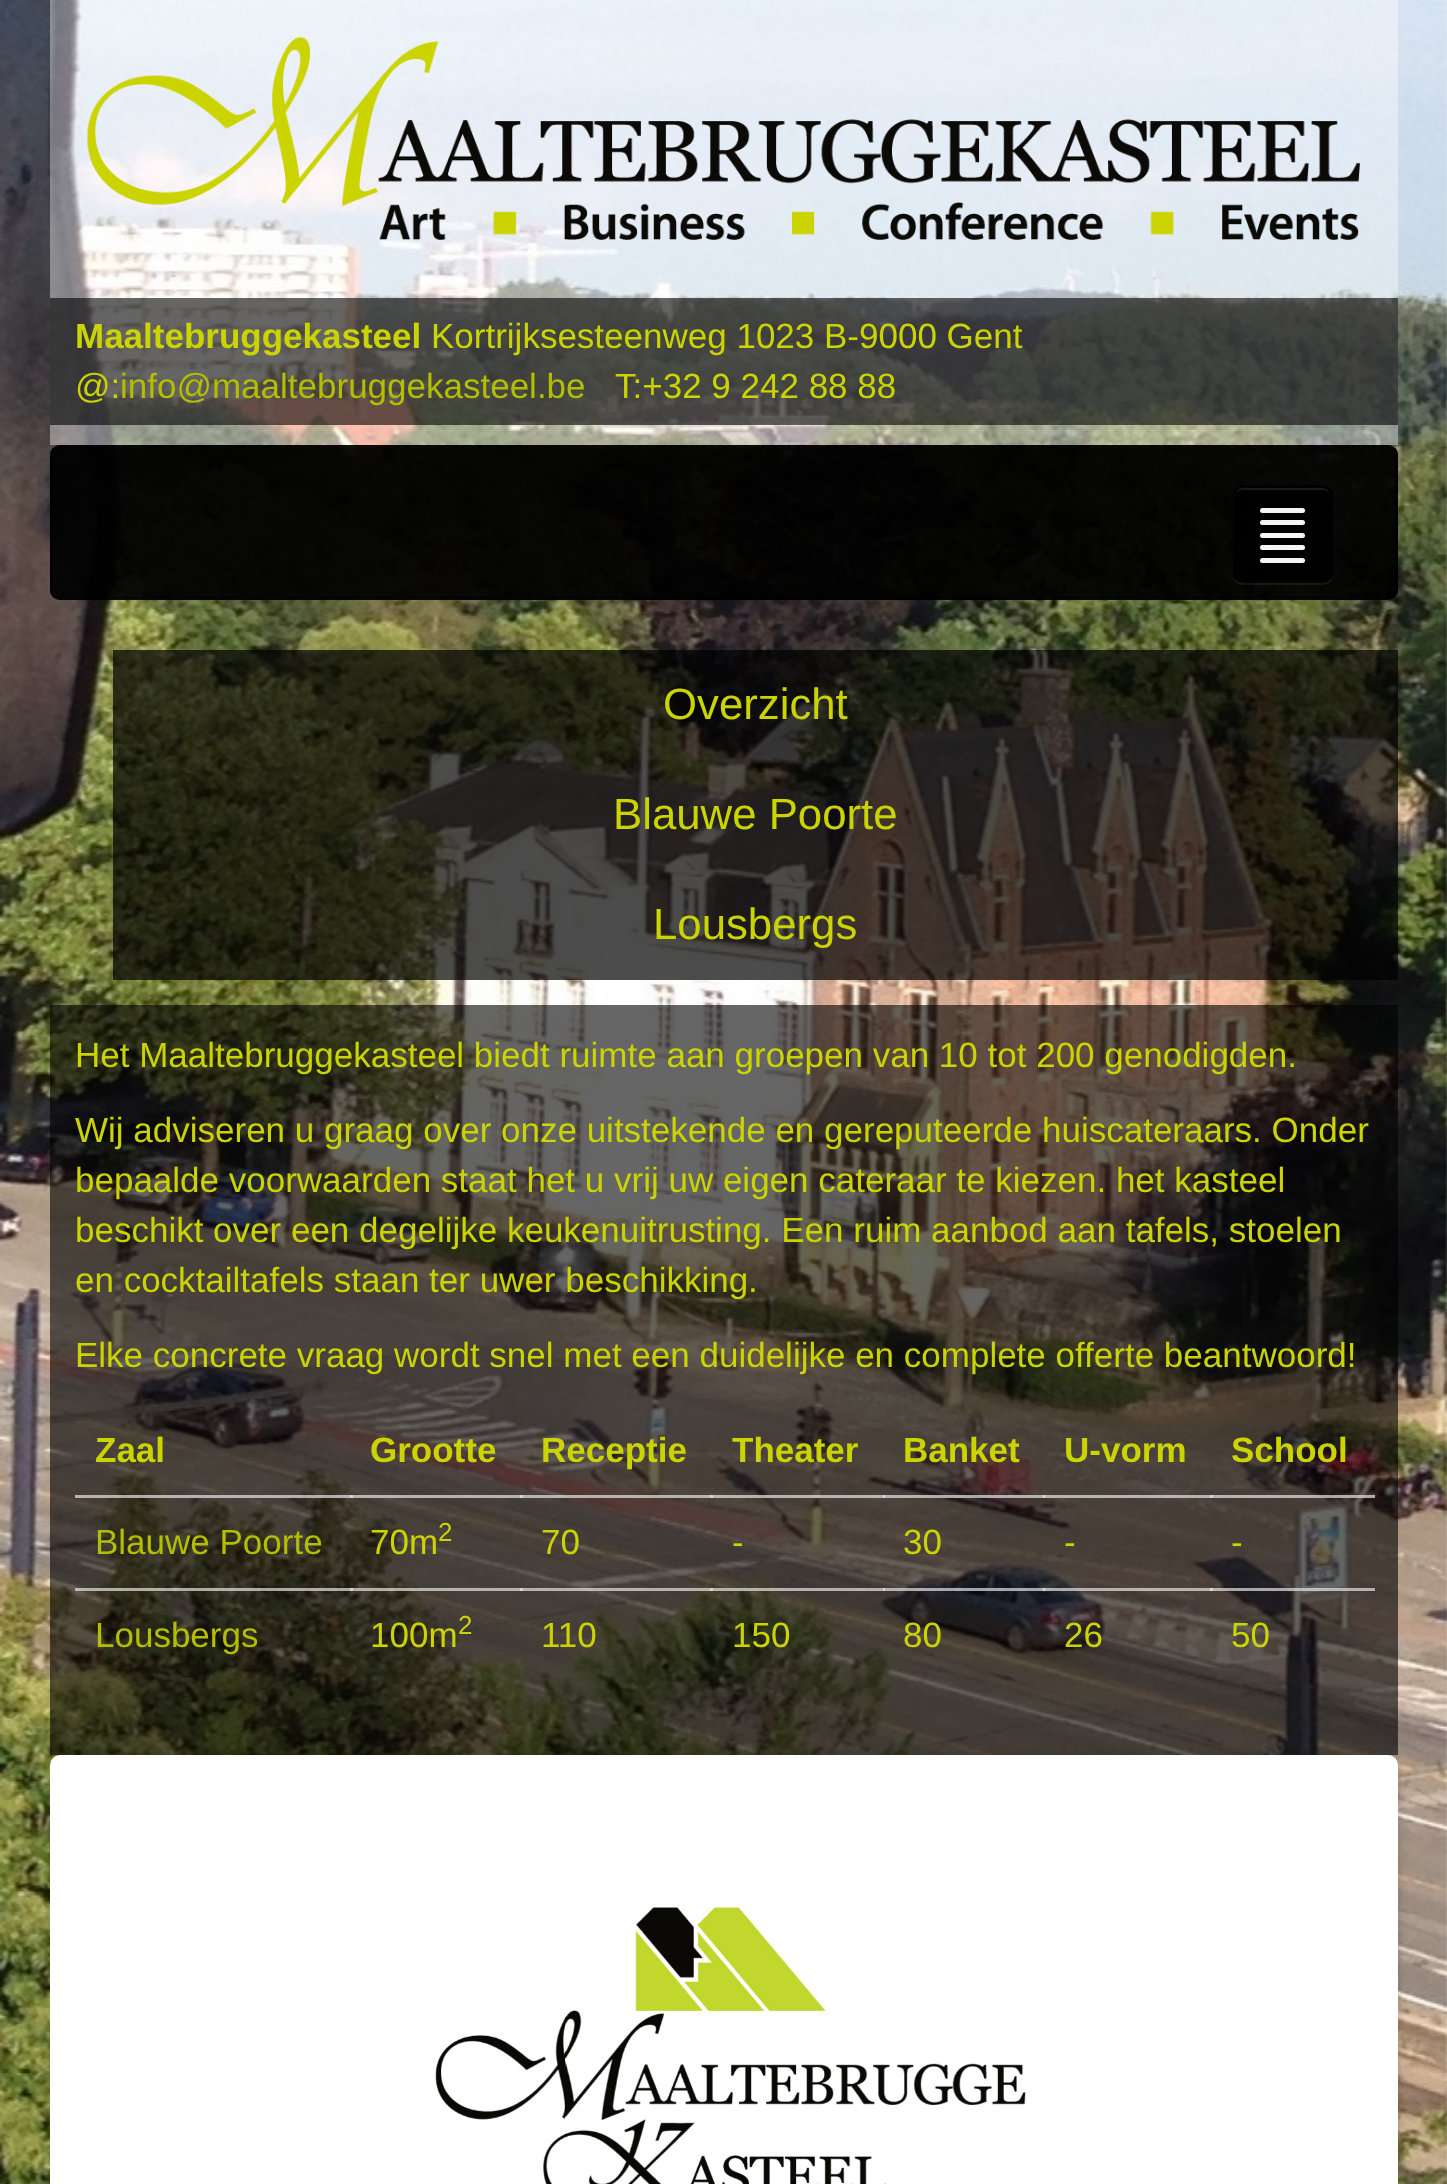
async function draw(canvas) {
	canvas.width = 1447;
	canvas.height = 2184;
	const c = canvas.getContext('2d');
	c.miterLimit = 4;
	c.fontKerning = 'normal';
	async function loadImage(src) {
		const img = new Image();
		img.src = src;
		await img.decode();
		return img;
	}
	let gradient;

	c.fillStyle = '#fff';
	c.fillRect(0, 0, 1447, 2184);
	c.drawImage(await loadImage('img1.png'), 0, 0, 1447, 2184);
	c.fillStyle = '#ffffff66';
	c.fillRect(50, 0, 1348, 445);
	c.drawImage(await loadImage('img2.png'), 87, 37, 1273, 203);
	c.fillStyle = '#00000099';
	c.fillRect(50, 298, 1348, 127);
	c.font = 'bold 35px Liberation Sans';
	c.fillStyle = '#cbd300';
	c.fillText('Maaltebruggekasteel', 75, 348);
	c.font = '35px Liberation Sans';
	c.fillText('Kortrijksesteenweg 1023 B-9000 Gent', 431, 348);
	c.fillText('@:', 75, 398);
	c.fillStyle = '#b4be00';
	c.fillText('info@maaltebruggekasteel.be', 120, 398);
	c.fillStyle = '#cbd300';
	c.fillText('T:+32 9 242 88 88', 615, 398);
	c.fillStyle = '#000000c2';
	c.beginPath();
	c.roundRect(50, 445, 1348, 155, 10);
	c.fill();
	c.save();
	c.beginPath();
	c.roundRect(50, 445, 1348, 155, 10);
	c.clip();
	gradient = c.createLinearGradient(724, 447, 724, 598);
	gradient.addColorStop(0, '#000000cc');
	gradient.addColorStop(1, '#000000b3');
	c.fillStyle = gradient;
	c.fillRect(50, 448, 1348, 150);
	c.restore();
	c.beginPath();
	c.roundRect(51.5, 446.5, 1345, 152, 8.5);
	c.strokeStyle = '#000000b3';
	c.lineWidth = 3;
	c.stroke();
	c.fillStyle = '#ffffff12';
	c.beginPath();
	c.moveTo(1233, 576);
	c.bezierCurveTo(1233, 581, 1238, 585, 1243, 585);
	c.lineTo(1323, 585);
	c.bezierCurveTo(1329, 585, 1333, 581, 1333, 575);
	c.lineTo(1333, 498);
	c.lineTo(1332, 495);
	c.lineTo(1332, 560);
	c.bezierCurveTo(1332, 583, 1333, 582, 1309, 582);
	c.lineTo(1256, 582);
	c.bezierCurveTo(1249, 582, 1236, 585, 1233, 576);
	c.closePath();
	c.fill();
	c.fillStyle = '#000000c2';
	c.beginPath();
	c.roundRect(1233, 485, 100, 98, 10);
	c.fill();
	c.save();
	c.beginPath();
	c.roundRect(1233, 485, 100, 98, 10);
	c.clip();
	gradient = c.createLinearGradient(1283, 488, 1283, 580);
	gradient.addColorStop(0, '#000000cc');
	gradient.addColorStop(1, '#000000b3');
	c.fillStyle = gradient;
	c.fillRect(1233, 488, 100, 92);
	c.restore();
	c.fillStyle = '#1a1a1a';
	c.beginPath();
	c.moveTo(1242, 490);
	c.lineTo(1322, 490);
	c.bezierCurveTo(1327, 490, 1330, 493, 1330, 498);
	c.bezierCurveTo(1330, 485, 1319, 488, 1309, 488);
	c.lineTo(1256, 488);
	c.bezierCurveTo(1246, 488, 1235, 485, 1235, 498);
	c.bezierCurveTo(1235, 493, 1238, 490, 1242, 490);
	c.closePath();
	c.fill();
	c.fillStyle = '#f5f5f5';
	c.beginPath();
	c.roundRect(1260, 508, 45, 5, 2.5);
	c.fill();
	c.beginPath();
	c.roundRect(1260, 520, 45, 5, 2.5);
	c.fill();
	c.beginPath();
	c.roundRect(1260, 533, 45, 5, 2.5);
	c.fill();
	c.beginPath();
	c.roundRect(1260, 545, 45, 5, 2.5);
	c.fill();
	c.beginPath();
	c.roundRect(1260, 558, 45, 5, 2.5);
	c.fill();
	c.fillStyle = '#000000b3';
	c.fillRect(113, 650, 1285, 110);
	c.font = '43.75px Liberation Sans';
	c.fillStyle = '#cbd300';
	c.fillText('Overzicht', 663, 719);
	c.fillStyle = '#000000b3';
	c.fillRect(113, 760, 1285, 110);
	c.fillStyle = '#cbd300';
	c.fillText('Blauwe Poorte', 613, 829);
	c.fillStyle = '#000000b3';
	c.fillRect(113, 870, 1285, 110);
	c.fillStyle = '#cbd300';
	c.fillText('Lousbergs', 653, 939);
	c.fillStyle = '#00000099';
	c.fillRect(50, 1005, 1348, 750);
	c.font = '35px Liberation Sans';
	c.fillStyle = '#cbd300';
	for (const [text, x, y] of [
		['Het Maaltebruggekasteel biedt ruimte aan groepen van 10 tot 200 genodigden.', 75, 1067],
		['Wij adviseren u graag over onze uitstekende en gereputeerde huiscateraars. Onder', 75, 1142],
		['bepaalde voorwaarden staat het u vrij uw eigen cateraar te kiezen. het kasteel', 75, 1192],
		['beschikt over een degelijke keukenuitrusting. Een ruim aanbod aan tafels, stoelen', 75, 1242],
		['en cocktailtafels staan ter uwer beschikking.', 75, 1292],
		['Elke concrete vraag wordt snel met een duidelijke en complete offerte beantwoord!', 75, 1367],
	]) {
		c.fillText(text, x, y);
	}
	c.font = 'bold 35px Liberation Sans';
	for (const [text, x, y] of [
		['Zaal', 95, 1462],
		['Grootte', 370, 1462],
		['Receptie', 541, 1462],
		['Theater', 732, 1462],
		['Banket', 903, 1462],
		['U-vorm', 1064, 1462],
		['School', 1231, 1462],
	]) {
		c.fillText(text, x, y);
	}
	for (const [x, y, w, h, color] of [
		[1210, 1495, 165, 3, '#e6e6e6b3'],
		[1043, 1495, 170, 3, '#e6e6e6b3'],
		[883, 1495, 162, 3, '#e6e6e6b3'],
		[710, 1495, 175, 3, '#e6e6e6b3'],
		[520, 1495, 193, 3, '#e6e6e6b3'],
		[350, 1495, 173, 3, '#e6e6e6b3'],
		[75, 1495, 278, 3, '#e6e6e6b3'],
	]) {
		c.fillStyle = color;
		c.fillRect(x, y, w, h);
	}
	c.font = '35px Liberation Sans';
	c.fillStyle = '#b4be00';
	c.fillText('Blauwe Poorte', 95, 1554);
	c.fillStyle = '#cbd300';
	c.fillText('70m', 370, 1554);
	c.font = '26px Liberation Sans';
	c.fillText('2', 438, 1541);
	c.font = '35px Liberation Sans';
	for (const [text, x, y] of [
		['70', 541, 1554],
		['-', 732, 1554],
		['30', 903, 1554],
		['-', 1064, 1554],
		['-', 1231, 1554],
	]) {
		c.fillText(text, x, y);
	}
	for (const [x, y, w, h, color] of [
		[1210, 1588, 165, 3, '#e6e6e6b3'],
		[1043, 1588, 170, 3, '#e6e6e6b3'],
		[883, 1588, 162, 3, '#e6e6e6b3'],
		[710, 1588, 175, 3, '#e6e6e6b3'],
		[520, 1588, 193, 3, '#e6e6e6b3'],
		[350, 1588, 173, 3, '#e6e6e6b3'],
		[75, 1588, 278, 3, '#e6e6e6b3'],
	]) {
		c.fillStyle = color;
		c.fillRect(x, y, w, h);
	}
	c.fillStyle = '#b4be00';
	c.fillText('Lousbergs', 95, 1647);
	c.fillStyle = '#cbd300';
	c.fillText('100m', 370, 1647);
	c.font = '26px Liberation Sans';
	c.fillText('2', 458, 1634);
	c.font = '35px Liberation Sans';
	for (const [text, x, y] of [
		['110', 541, 1647],
		['150', 732, 1647],
		['80', 903, 1647],
		['26', 1064, 1647],
		['50', 1231, 1647],
	]) {
		c.fillText(text, x, y);
	}
	c.fillStyle = '#00000033';
	c.filter = 'blur(5px)';
	c.beginPath();
	c.roundRect(50, 1758, 1348, 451, 10);
	c.fill();
	c.filter = 'none';
	c.fillStyle = '#fff';
	c.beginPath();
	c.roundRect(55, 1760, 1338, 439, 5);
	c.fill();
	c.strokeStyle = '#fff';
	c.lineWidth = 10;
	c.stroke();
	c.drawImage(await loadImage('img3.png'), 435, 1907, 591, 277);
}

draw(document.querySelector('canvas'));
